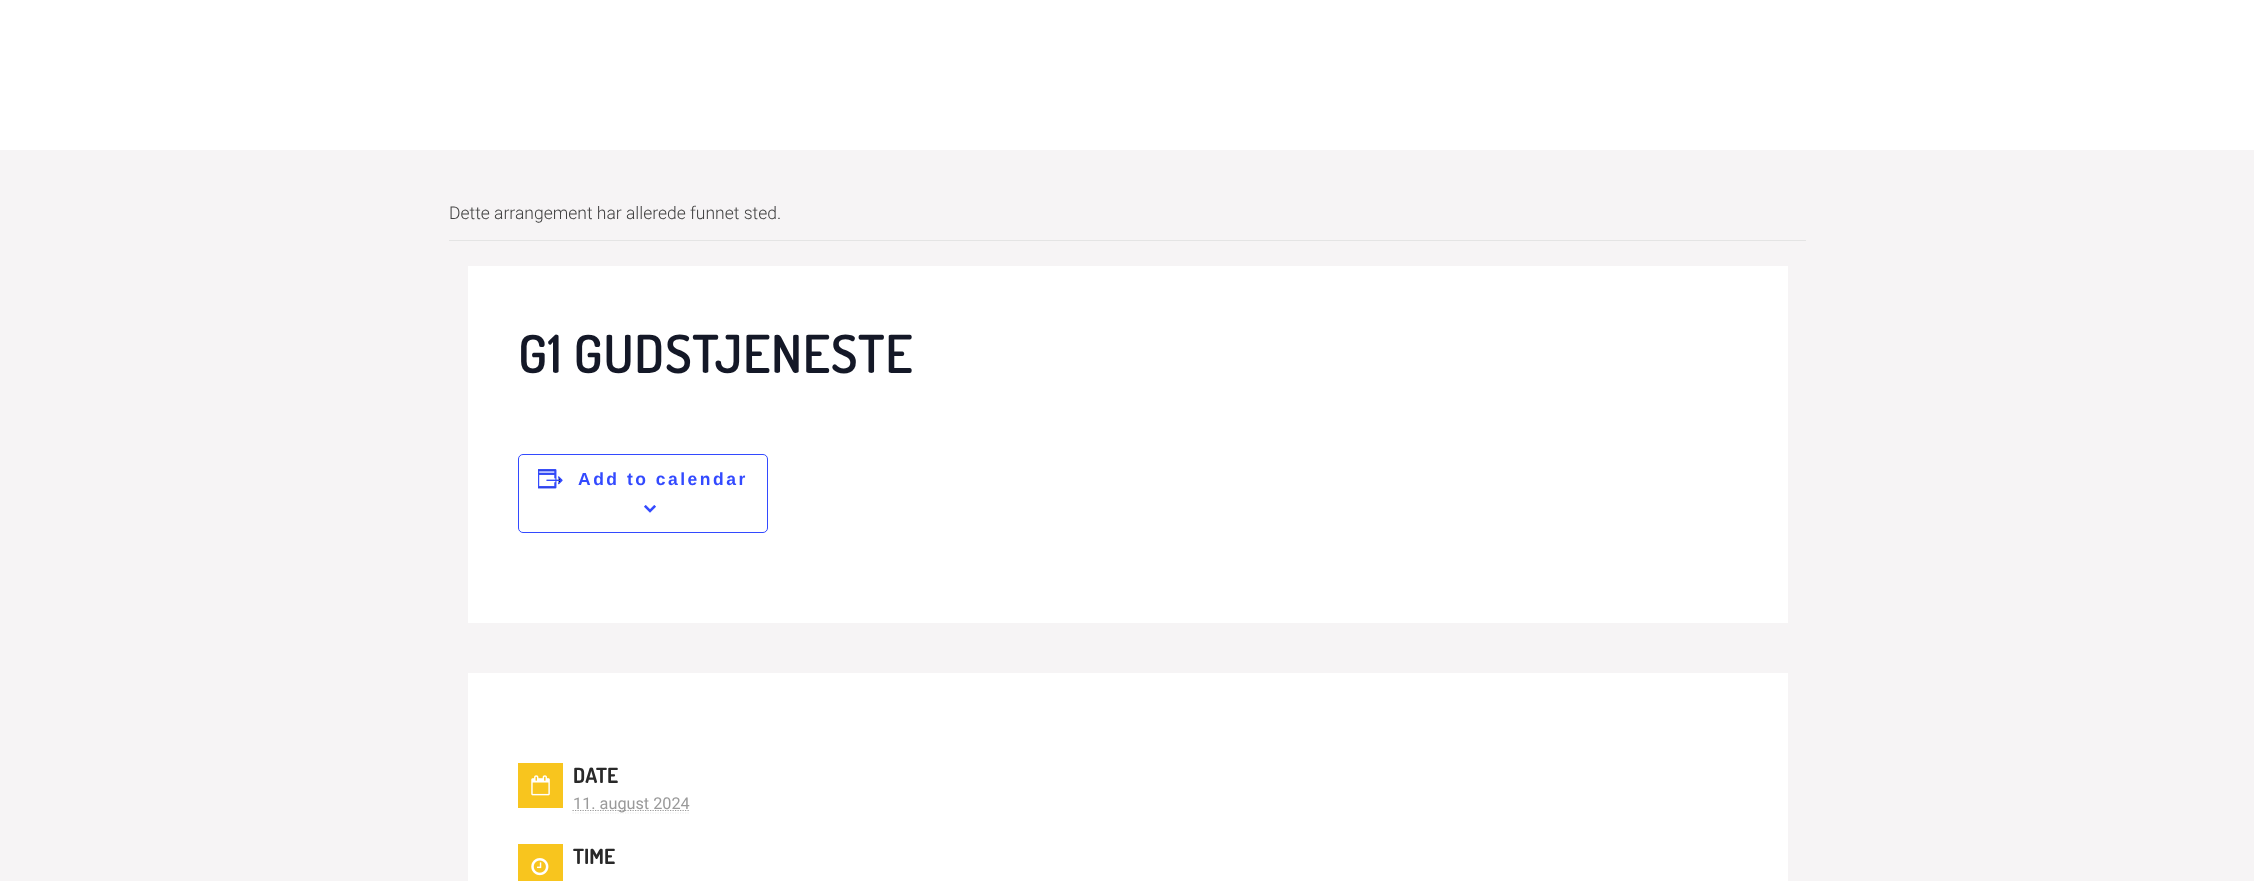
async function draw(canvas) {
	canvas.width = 2254;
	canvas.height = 881;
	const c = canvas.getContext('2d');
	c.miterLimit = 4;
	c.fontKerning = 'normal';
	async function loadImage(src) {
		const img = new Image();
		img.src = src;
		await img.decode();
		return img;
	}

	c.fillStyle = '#f6f4f5';
	c.fillRect(0, 0, 2254, 881);
	c.fillStyle = '#fff';
	c.fillRect(0, 0, 2254, 150);
	c.fillStyle = '#e4e4e4';
	c.fillRect(449, 240, 1357, 1);
	c.font = '300 17.5px Roboto';
	c.fillStyle = '#424242';
	c.fillText('Dette arrangement har allerede funnet sted.', 449, 219);
	c.fillStyle = '#fff';
	c.fillRect(468, 266, 1320, 357);
	c.letterSpacing = '0.6px';
	c.font = '600 52.5px Dosis';
	c.fillStyle = '#141827';
	c.fillText('G1 GUDSTJENESTE', 518, 373);
	c.beginPath();
	c.roundRect(518.5, 454.5, 249, 78, 4.5);
	c.strokeStyle = '#334aff';
	c.stroke();
	c.drawImage(await loadImage('img1.png'), 538, 469, 25, 20);
	c.letterSpacing = '2.5px';
	c.font = 'bold 17.5px Liberation Sans';
	c.fillStyle = '#334aff';
	c.fillText('Add to calendar', 578, 485);
	c.drawImage(await loadImage('img2.png'), 644, 505, 12, 8);
	c.fillStyle = '#fff';
	c.fillRect(468, 673, 1320, 208);
	c.fillStyle = '#f8c51e';
	c.fillRect(518, 763, 45, 45);
	c.drawImage(await loadImage('img3.png'), 531, 775, 19, 21);
	c.letterSpacing = '0px';
	c.font = 'bold 21px Dosis';
	c.fillStyle = '#292929';
	c.fillText('DATE', 573, 783);
	c.beginPath();
	c.moveTo(572.5, 813);
	c.lineTo(689, 813);
	c.strokeStyle = '#ebebeb';
	c.lineWidth = 1.2;
	c.setLineDash([1.25, 1.25]);
	c.stroke();
	c.beginPath();
	c.moveTo(572.5, 810.5);
	c.lineTo(689, 810.5);
	c.strokeStyle = '#9a9a9a';
	c.stroke();
	c.font = '16.25px Roboto';
	c.fillStyle = '#9a9a9a';
	c.fillText('11. august 2024', 573, 809);
	c.fillStyle = '#f8c51e';
	c.fillRect(518, 844, 45, 37);
	c.drawImage(await loadImage('img4.png'), 531, 858, 18, 18);
	c.font = 'bold 21px Dosis';
	c.fillStyle = '#292929';
	c.fillText('TIME', 573, 864);
}

draw(document.querySelector('canvas'));
